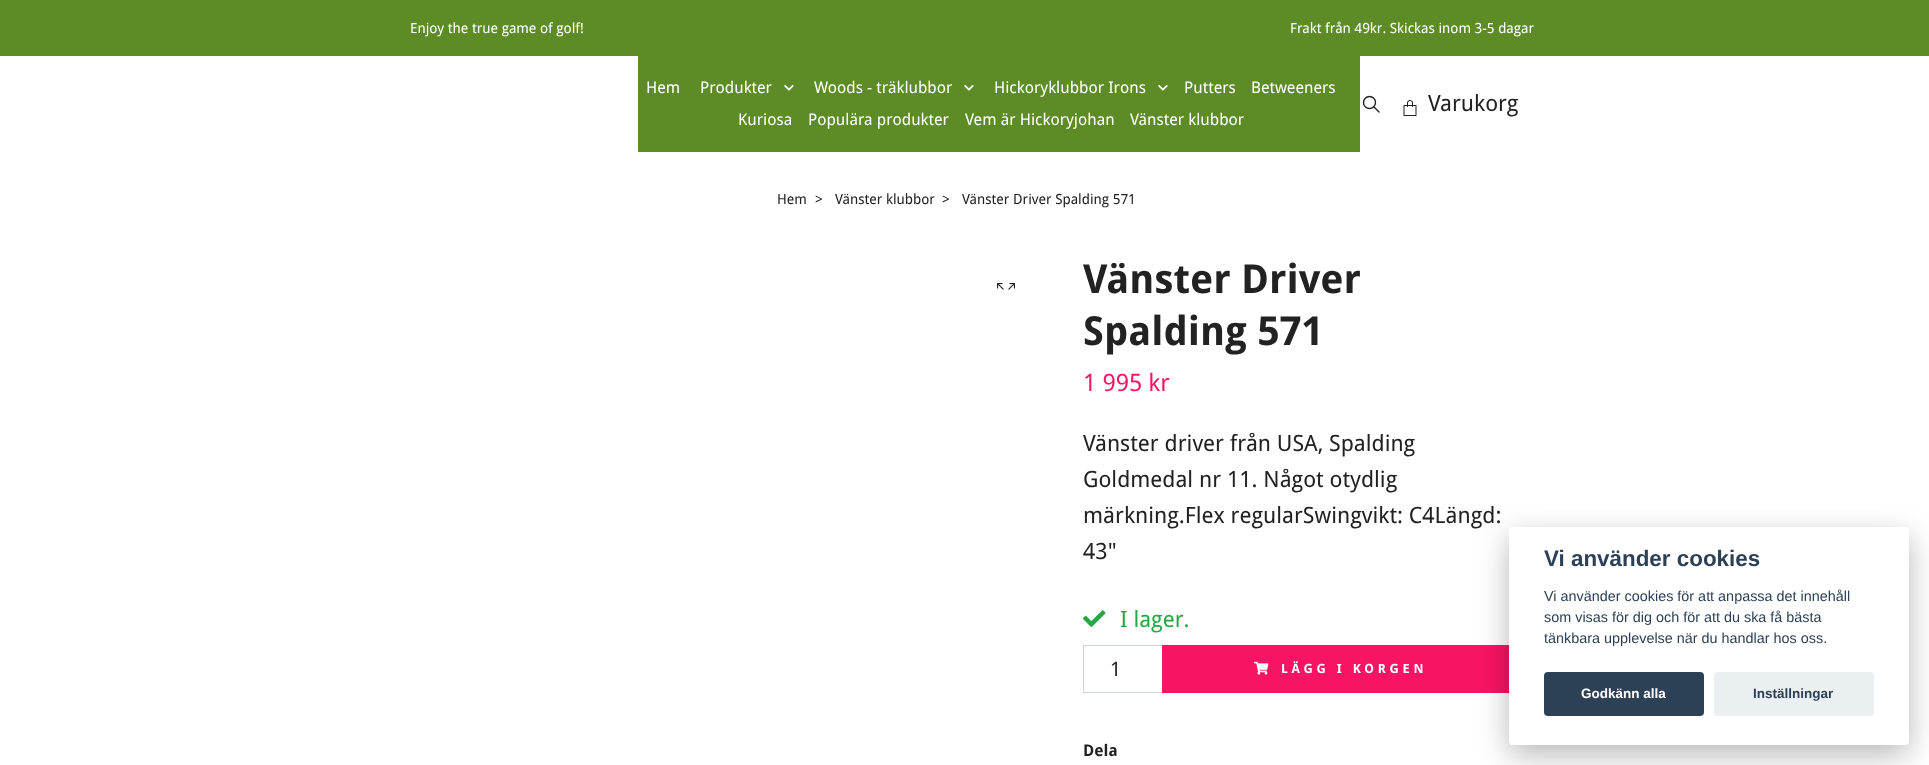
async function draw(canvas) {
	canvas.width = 1929;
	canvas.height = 765;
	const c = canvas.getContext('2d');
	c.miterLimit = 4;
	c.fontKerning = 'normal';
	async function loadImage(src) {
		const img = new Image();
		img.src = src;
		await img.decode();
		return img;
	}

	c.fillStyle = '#fff';
	c.fillRect(0, 0, 1929, 765);
	c.fillStyle = '#5d8c26';
	c.fillRect(0, 0, 1929, 56);
	c.font = '14px Droid Sans';
	c.fillStyle = '#fff';
	c.fillText('Enjoy the true game of golf!', 410, 33);
	c.fillText('Frakt från 49kr. Skickas inom 3-5 dagar', 1290, 33);
	c.fillStyle = '#5d8c26';
	c.fillRect(638, 56, 722, 96);
	c.font = '16px Droid Sans';
	c.fillStyle = '#fff';
	c.fillText('Hem', 646, 93);
	c.fillText('Produkter', 700, 93);
	c.drawImage(await loadImage('img1.png'), 784, 85, 10, 6);
	c.fillText('Woods - träklubbor', 814, 93);
	c.drawImage(await loadImage('img1.png'), 964, 85, 10, 6);
	c.fillText('Hickoryklubbor Irons', 994, 93);
	c.drawImage(await loadImage('img1.png'), 1158, 85, 10, 6);
	for (const [text, x, y] of [
		['Putters', 1184, 93],
		['Betweeners', 1251, 93],
		['Kuriosa', 738, 125],
		['Populära produkter', 808, 125],
		['Vem är Hickoryjohan', 965, 125],
		['Vänster klubbor', 1130, 125],
	]) {
		c.fillText(text, x, y);
	}
	c.beginPath();
	c.moveTo(1373.5, 106.5);
	c.lineTo(1379, 112);
	c.strokeStyle = '#222';
	c.lineWidth = 1.4;
	c.lineCap = 'round';
	c.lineJoin = 'round';
	c.stroke();
	c.beginPath();
	c.arc(1369.5, 102.5, 6, 0, 2 * Math.PI);
	c.stroke();
	c.drawImage(await loadImage('img2.png'), 1403, 100, 14, 16);
	c.font = '22.4px Droid Sans';
	c.fillStyle = '#222';
	c.fillText('Varukorg', 1428, 111);
	c.font = '14px Droid Sans';
	for (const [text, x, y] of [
		['Hem', 777, 204],
		['>', 815, 204],
		['Vänster klubbor', 835, 204],
		['>', 942, 204],
		['Vänster Driver Spalding 571', 962, 204],
	]) {
		c.fillText(text, x, y);
	}
	c.drawImage(await loadImage('img3.png'), 997, 283, 18, 7);
	c.font = 'bold 40px Droid Sans';
	c.fillText('Vänster Driver', 1083, 293);
	c.fillText('Spalding 571', 1083, 345);
	c.font = '24px Droid Sans';
	c.fillStyle = '#f81464';
	c.fillText('1 995 kr', 1083, 391);
	c.font = '22.4px Droid Sans';
	c.fillStyle = '#222';
	for (const [text, x, y] of [
		['Vänster driver från USA, Spalding', 1083, 451],
		['Goldmedal nr 11. Något otydlig', 1083, 487],
		['märkning.Flex regularSwingvikt: C4Längd:', 1083, 523],
		['43"', 1083, 559],
	]) {
		c.fillText(text, x, y);
	}
	c.drawImage(await loadImage('img4.png'), 1083, 610, 23, 17);
	c.fillStyle = '#28a745';
	c.fillText('I lager.', 1120, 627);
	c.strokeStyle = '#ced4da';
	c.lineWidth = 1;
	c.lineJoin = 'miter';
	c.strokeRect(1083.5, 645.5, 79, 47);
	c.font = '20px Droid Sans';
	c.fillStyle = '#222';
	c.fillText('1', 1110, 676);
	c.fillStyle = '#f81464';
	c.fillRect(1162, 645, 347, 48);
	c.drawImage(await loadImage('img5.png'), 1254, 661, 15, 14);
	c.letterSpacing = '3.8px';
	c.font = 'bold 12.75px Droid Sans';
	c.fillStyle = '#fff';
	c.fillText('LÄGG I KORGEN', 1281, 673);
	c.letterSpacing = '0px';
	c.font = 'bold 16px Droid Sans';
	c.fillStyle = '#222';
	c.fillText('Dela', 1083, 756);
	c.fillStyle = '#02020347';
	c.filter = 'blur(15px)';
	c.beginPath();
	c.roundRect(1509, 537, 400, 218, 4);
	c.fill();
	c.filter = 'none';
	c.fillStyle = '#fff';
	c.beginPath();
	c.roundRect(1509, 527, 400, 218, 4);
	c.fill();
	c.font = 'bold 22.4px Liberation Sans';
	c.fillStyle = '#2d4156';
	c.fillText('Vi använder cookies', 1544, 566);
	c.font = '14.4px Liberation Sans';
	for (const [text, x, y] of [
		['Vi använder cookies för att anpassa det innehåll', 1544, 601],
		['som visas för dig och för att du ska få bästa', 1544, 622],
		['tänkbara upplevelse när du handlar hos oss.', 1544, 643],
	]) {
		c.fillText(text, x, y);
	}
	c.beginPath();
	c.roundRect(1544, 672, 160, 44, 4);
	c.fill();
	c.font = 'bold 13.5px Liberation Sans';
	c.fillStyle = '#fff';
	c.fillText('Godkänn alla', 1581, 698);
	c.fillStyle = '#eaeff2';
	c.beginPath();
	c.roundRect(1714, 672, 160, 44, 4);
	c.fill();
	c.fillStyle = '#2d4156';
	c.fillText('Inställningar', 1753, 698);
}

draw(document.querySelector('canvas'));
